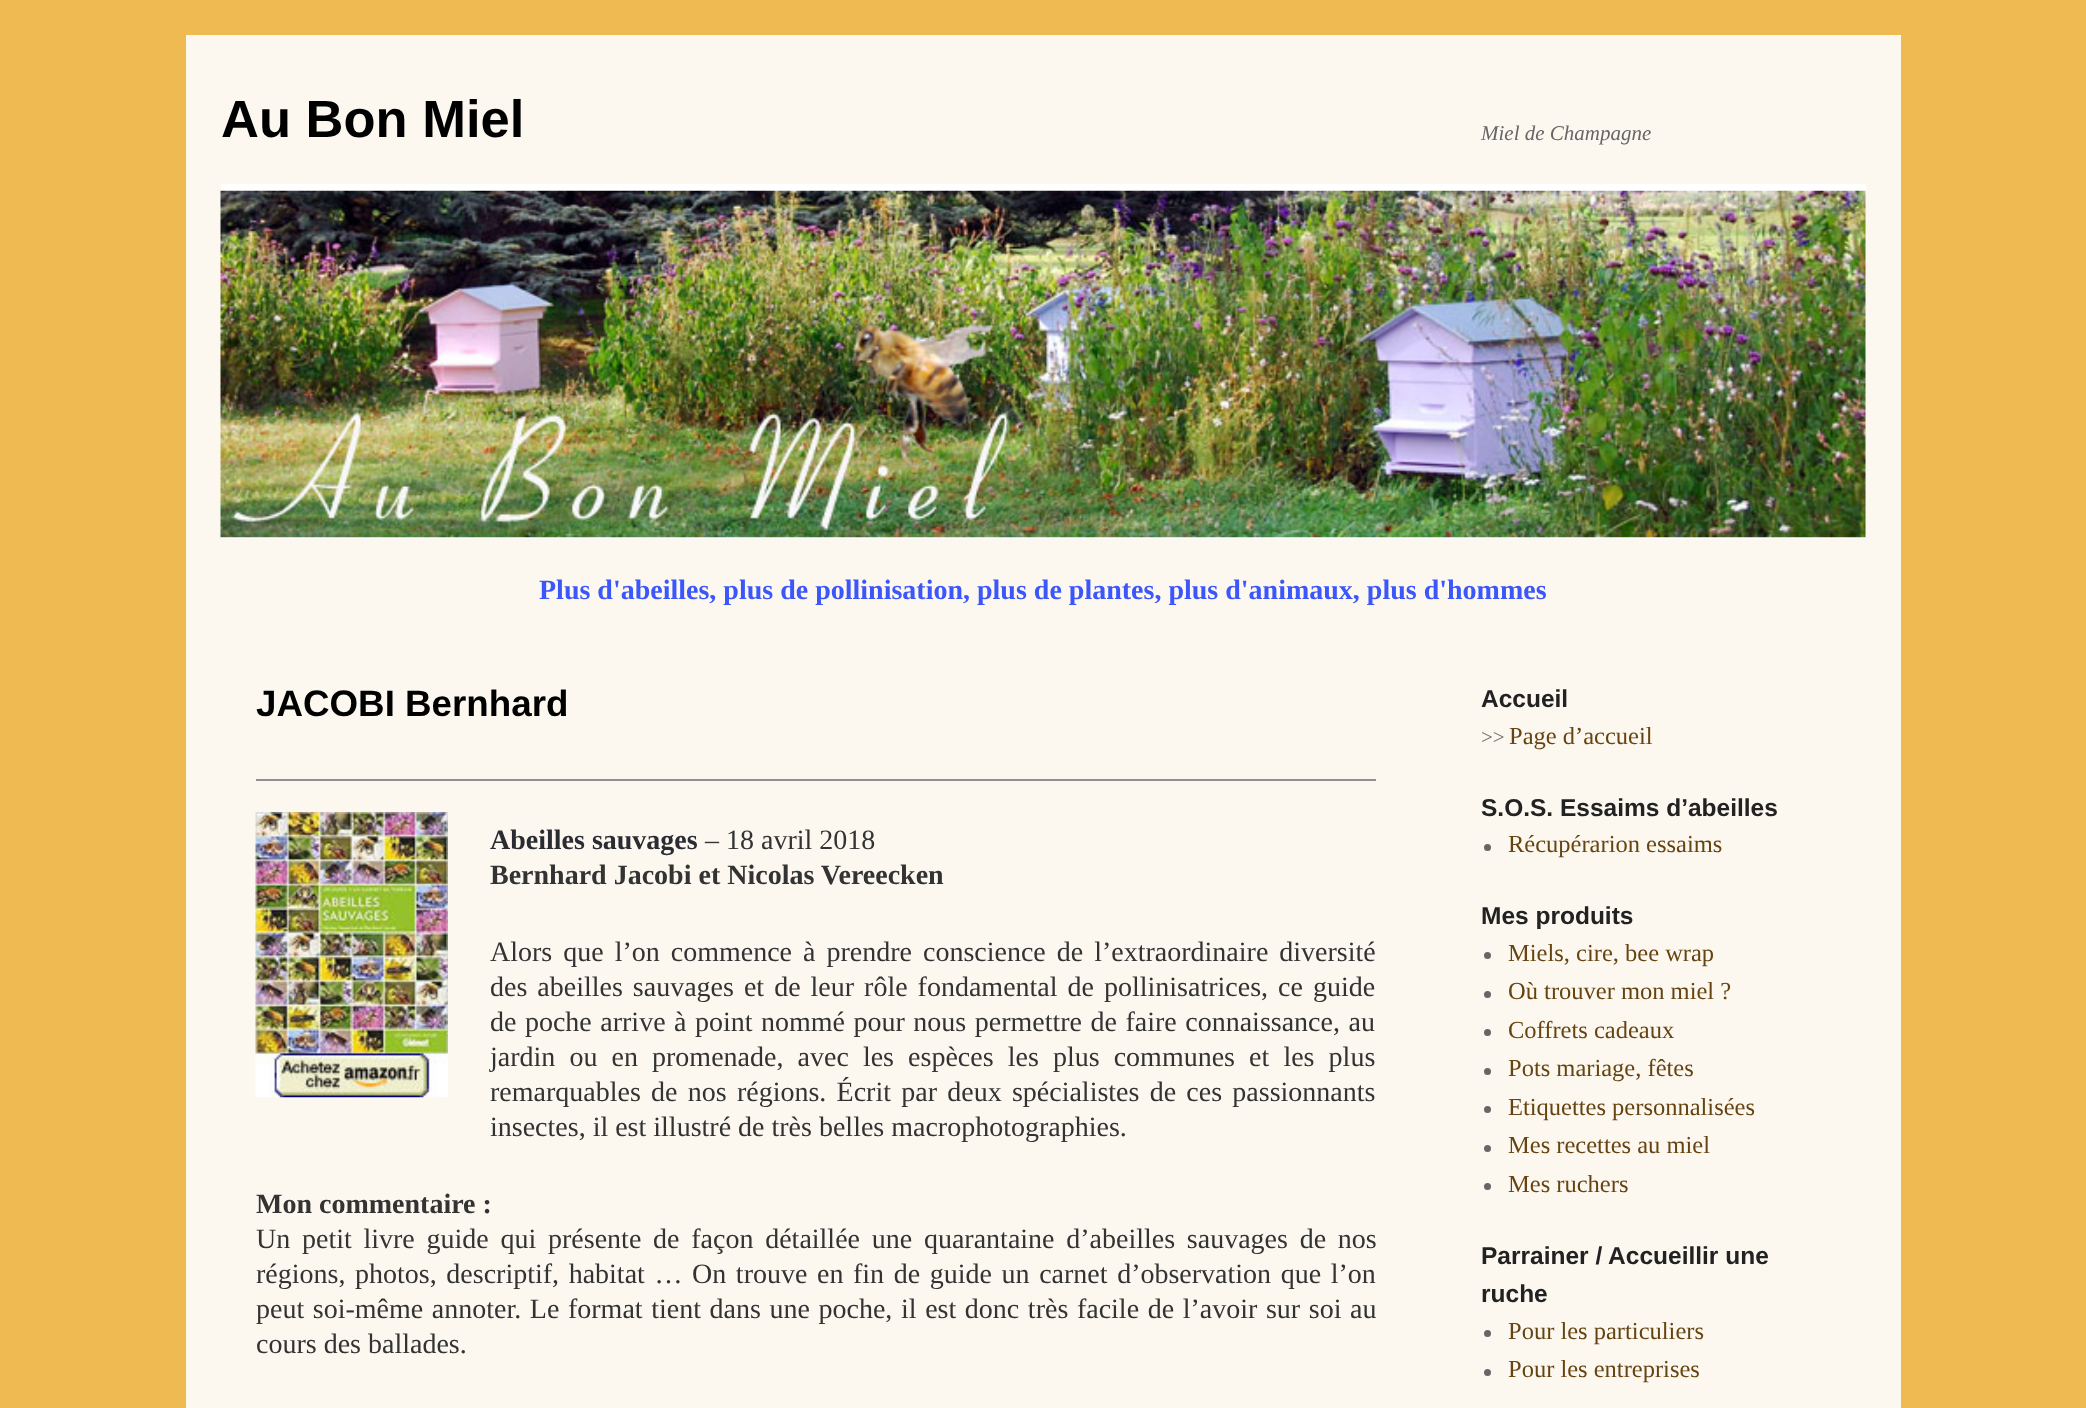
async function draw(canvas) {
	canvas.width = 2086;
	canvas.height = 1408;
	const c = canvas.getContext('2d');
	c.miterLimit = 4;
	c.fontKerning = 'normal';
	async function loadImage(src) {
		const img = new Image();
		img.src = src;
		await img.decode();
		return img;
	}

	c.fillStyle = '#efba51';
	c.fillRect(0, 0, 2086, 1408);
	c.fillStyle = '#fcf8f0';
	c.fillRect(186, 35, 1715, 1373);
	c.font = 'bold 52.5px Liberation Sans';
	c.fillStyle = '#000';
	c.fillText('Au Bon Miel', 221, 137);
	c.font = 'italic 21px Liberation Serif';
	c.fillStyle = '#666';
	c.fillText('Miel de Champagne', 1481, 140);
	c.fillStyle = '#fff';
	c.fillRect(221, 184, 1645, 7);
	c.fillRect(221, 537, 1645, 2);
	c.drawImage(await loadImage('img1.png'), 220, 190, 1646, 348);
	c.font = 'bold 28px Liberation Serif';
	c.fillStyle = '#3b57fc';
	c.fillText('Plus d\'abeilles, plus de pollinisation, plus de plantes, plus d\'animaux, plus d\'hommes', 539, 599);
	c.font = 'bold 36.75px Liberation Sans';
	c.fillStyle = '#000';
	c.fillText('JACOBI Bernhard', 256, 716);
	c.fillStyle = '#909090';
	c.fillRect(256, 779, 1120, 2);
	c.drawImage(await loadImage('img2.png'), 255, 812, 193, 286);
	c.font = 'bold 28px Liberation Serif';
	c.fillStyle = '#2b2c33';
	c.fillText('Abeilles sauvages', 490, 849);
	c.font = '28px Liberation Serif';
	c.fillStyle = '#333';
	c.fillText('– 18 avril 2018', 705, 849);
	c.font = 'bold 28px Liberation Serif';
	c.fillText('Bernhard Jacobi et Nicolas Vereecken', 490, 884);
	c.wordSpacing = '4px';
	c.font = '28px Liberation Serif';
	c.fillText('Alors que l’on commence à prendre conscience de l’extraordinaire diversité', 490, 961);
	c.wordSpacing = '3px';
	c.fillText('des abeilles sauvages et de leur rôle fondamental de pollinisatrices, ce guide', 490, 996);
	c.wordSpacing = '1.5px';
	c.fillText('de poche arrive à point nommé pour nous permettre de faire connaissance, au', 490, 1031);
	c.wordSpacing = '7.1px';
	c.fillText('jardin ou en promenade, avec les espèces les plus communes et les plus', 490, 1066);
	c.wordSpacing = '3.25px';
	c.fillText('remarquables de nos régions. Écrit par deux spécialistes de ces passionnants', 490, 1101);
	c.wordSpacing = '0px';
	c.fillText('insectes, il est illustré de très belles macrophotographies.', 490, 1136);
	c.font = 'bold 28px Liberation Serif';
	c.fillText('Mon commentaire :', 256, 1213);
	c.wordSpacing = '4.75px';
	c.font = '28px Liberation Serif';
	c.fillText('Un petit livre guide qui présente de façon détaillée une quarantaine d’abeilles sauvages de nos', 256, 1248);
	c.wordSpacing = '2.6px';
	c.fillText('régions, photos, descriptif, habitat … On trouve en fin de guide un carnet d’observation que l’on', 256, 1283);
	c.wordSpacing = '1.6px';
	c.fillText('peut soi-même annoter. Le format tient dans une poche, il est donc très facile de l’avoir sur soi au', 256, 1318);
	c.wordSpacing = '0px';
	c.fillText('cours des ballades.', 256, 1353);
	c.font = 'bold 24.5px Liberation Sans';
	c.fillStyle = '#222';
	c.fillText('Accueil', 1481, 707);
	c.font = '21px Liberation Serif';
	c.fillStyle = '#666';
	c.fillText('>>', 1481, 744);
	c.font = '24.5px Liberation Serif';
	c.fillStyle = '#641';
	c.fillText('Page d’accueil', 1509, 744);
	c.font = 'bold 24.5px Liberation Sans';
	c.fillStyle = '#222';
	c.fillText('S.O.S. Essaims d’abeilles', 1481, 816);
	c.fillStyle = '#666';
	c.beginPath();
	c.arc(1487.5, 847.5, 3.5, 0, 2 * Math.PI);
	c.fill();
	c.font = '24.5px Liberation Serif';
	c.fillStyle = '#641';
	c.fillText('Récupérarion essaims', 1508, 852);
	c.font = 'bold 24.5px Liberation Sans';
	c.fillStyle = '#222';
	c.fillText('Mes produits', 1481, 924);
	c.fillStyle = '#666';
	c.beginPath();
	c.arc(1487.5, 955.5, 3.5, 0, 2 * Math.PI);
	c.fill();
	c.font = '24.5px Liberation Serif';
	c.fillStyle = '#641';
	c.fillText('Miels, cire, bee wrap', 1508, 961);
	c.fillStyle = '#666';
	c.beginPath();
	c.arc(1487.5, 994.5, 3.5, 0, 2 * Math.PI);
	c.fill();
	c.fillStyle = '#641';
	c.fillText('Où trouver mon miel ?', 1508, 999);
	c.fillStyle = '#666';
	c.beginPath();
	c.arc(1487.5, 1032.5, 3.5, 0, 2 * Math.PI);
	c.fill();
	c.fillStyle = '#641';
	c.fillText('Coffrets cadeaux', 1508, 1038);
	c.fillStyle = '#666';
	c.beginPath();
	c.arc(1487.5, 1071.5, 3.5, 0, 2 * Math.PI);
	c.fill();
	c.fillStyle = '#641';
	c.fillText('Pots mariage, fêtes', 1508, 1076);
	c.fillStyle = '#666';
	c.beginPath();
	c.arc(1487.5, 1109.5, 3.5, 0, 2 * Math.PI);
	c.fill();
	c.fillStyle = '#641';
	c.fillText('Etiquettes personnalisées', 1508, 1115);
	c.fillStyle = '#666';
	c.beginPath();
	c.arc(1487.5, 1148.5, 3.5, 0, 2 * Math.PI);
	c.fill();
	c.fillStyle = '#641';
	c.fillText('Mes recettes au miel', 1508, 1153);
	c.fillStyle = '#666';
	c.beginPath();
	c.arc(1487.5, 1186.5, 3.5, 0, 2 * Math.PI);
	c.fill();
	c.fillStyle = '#641';
	c.fillText('Mes ruchers', 1508, 1192);
	c.font = 'bold 24.5px Liberation Sans';
	c.fillStyle = '#222';
	c.fillText('Parrainer / Accueillir une', 1481, 1264);
	c.fillText('ruche', 1481, 1302);
	c.fillStyle = '#666';
	c.beginPath();
	c.arc(1487.5, 1333.5, 3.5, 0, 2 * Math.PI);
	c.fill();
	c.font = '24.5px Liberation Serif';
	c.fillStyle = '#641';
	c.fillText('Pour les particuliers', 1508, 1339);
	c.fillStyle = '#666';
	c.beginPath();
	c.arc(1487.5, 1372.5, 3.5, 0, 2 * Math.PI);
	c.fill();
	c.fillStyle = '#641';
	c.fillText('Pour les entreprises', 1508, 1377);
}

draw(document.querySelector('canvas'));
